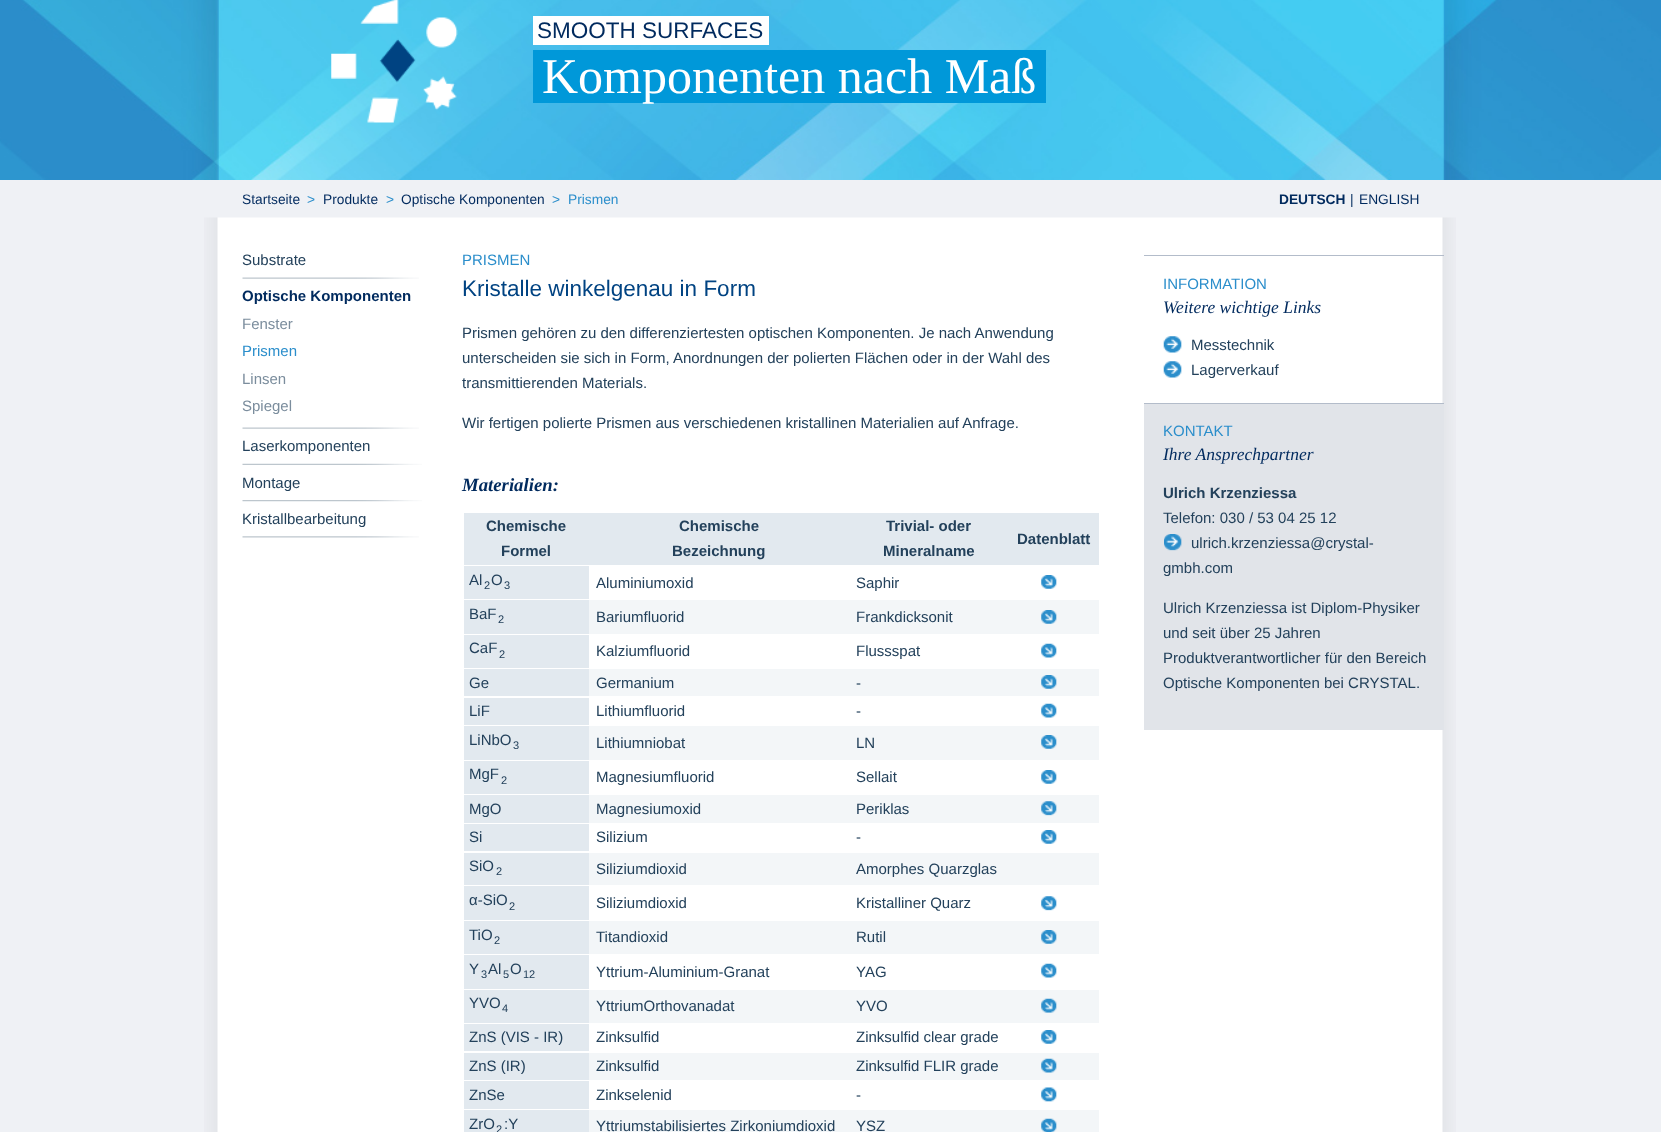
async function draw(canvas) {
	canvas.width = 1661;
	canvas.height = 1132;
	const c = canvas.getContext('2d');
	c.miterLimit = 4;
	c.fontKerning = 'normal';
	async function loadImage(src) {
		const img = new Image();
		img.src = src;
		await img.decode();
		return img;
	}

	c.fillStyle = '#eff1f5';
	c.fillRect(0, 0, 1661, 1132);
	c.drawImage(await loadImage('img1.png'), 0, 0, 1661, 180);
	c.drawImage(await loadImage('img2.png'), 331, 0, 127, 123);
	c.fillStyle = '#fff';
	c.fillRect(533, 16, 236, 29);
	c.font = '22.5px Liberation Sans';
	c.fillStyle = '#002a5e';
	c.fillText('SMOOTH SURFACES', 537, 38);
	c.fillStyle = '#0098d9';
	c.fillRect(533, 50, 513, 53);
	c.font = '50px Liberation Serif';
	c.fillStyle = '#fff';
	c.fillText('Komponenten nach Maß', 542, 93);
	c.font = '13.75px Liberation Sans';
	c.fillStyle = '#002a5e';
	c.fillText('Startseite', 242, 204);
	c.fillStyle = '#2b8ecb';
	c.fillText('>', 307, 204);
	c.fillStyle = '#002a5e';
	c.fillText('Produkte', 323, 204);
	c.fillStyle = '#2b8ecb';
	c.fillText('>', 386, 204);
	c.fillStyle = '#002a5e';
	c.fillText('Optische Komponenten', 401, 204);
	c.fillStyle = '#2b8ecb';
	c.fillText('>', 552, 204);
	c.fillText('Prismen', 568, 204);
	c.font = 'bold 13.75px Liberation Sans';
	c.fillStyle = '#002a5e';
	c.fillText('DEUTSCH', 1279, 204);
	c.font = '13.75px Liberation Sans';
	c.fillText('|', 1350, 204);
	c.fillText('ENGLISH', 1359, 204);
	c.drawImage(await loadImage('img3.png'), 204, 217, 1252, 915);
	c.drawImage(await loadImage('img4.png'), 242, 277, 177, 2);
	c.font = '15px Liberation Sans';
	c.fillStyle = '#23415b';
	c.fillText('Substrate', 242, 265);
	c.drawImage(await loadImage('img4.png'), 242, 427, 177, 2);
	c.font = 'bold 15px Liberation Sans';
	c.fillStyle = '#002a5e';
	c.fillText('Optische Komponenten', 242, 301);
	c.font = '15px Liberation Sans';
	c.fillStyle = '#7b8d9d';
	c.fillText('Fenster', 242, 329);
	c.fillStyle = '#2b8ecb';
	c.fillText('Prismen', 242, 356);
	c.fillStyle = '#7b8d9d';
	c.fillText('Linsen', 242, 384);
	c.fillText('Spiegel', 242, 411);
	c.drawImage(await loadImage('img5.png'), 242, 463, 180, 2);
	c.fillStyle = '#23415b';
	c.fillText('Laserkomponenten', 242, 451);
	c.drawImage(await loadImage('img6.png'), 242, 500, 180, 2);
	c.fillText('Montage', 242, 488);
	c.drawImage(await loadImage('img7.png'), 242, 536, 177, 2);
	c.fillText('Kristallbearbeitung', 242, 524);
	c.fillStyle = '#2b8ecb';
	c.fillText('PRISMEN', 462, 265);
	c.font = '22.5px Liberation Sans';
	c.fillStyle = '#004382';
	c.fillText('Kristalle winkelgenau in Form', 462, 296);
	c.font = '15px Liberation Sans';
	c.fillStyle = '#23415b';
	for (const [text, x, y] of [
		['Prismen gehören zu den differenziertesten optischen Komponenten. Je nach Anwendung', 462, 338],
		['unterscheiden sie sich in Form, Anordnungen der polierten Flächen oder in der Wahl des', 462, 363],
		['transmittierenden Materials.', 462, 388],
		['Wir fertigen polierte Prismen aus verschiedenen kristallinen Materialien auf Anfrage.', 462, 428],
	]) {
		c.fillText(text, x, y);
	}
	c.font = 'italic bold 18.75px Liberation Serif';
	c.fillStyle = '#002a5e';
	c.fillText('Materialien:', 462, 491);
	c.fillStyle = '#e2e9ef';
	c.fillRect(464, 513, 635, 52);
	c.font = 'bold 15px Liberation Sans';
	c.fillStyle = '#23415b';
	for (const [text, x, y] of [
		['Chemische', 486, 531],
		['Formel', 501, 556],
		['Chemische', 679, 531],
		['Bezeichnung', 672, 556],
		['Trivial- oder', 886, 531],
		['Mineralname', 883, 556],
		['Datenblatt', 1017, 544],
	]) {
		c.fillText(text, x, y);
	}
	c.fillStyle = '#e2e9ef';
	c.fillRect(464, 566, 125, 33);
	c.font = '15px Liberation Sans';
	c.fillStyle = '#23415b';
	c.fillText('Al', 469, 585);
	c.font = '11px Liberation Sans';
	c.fillText('2', 484, 589);
	c.font = '15px Liberation Sans';
	c.fillText('O', 491, 585);
	c.font = '11px Liberation Sans';
	c.fillText('3', 504, 589);
	c.font = '15px Liberation Sans';
	c.fillText('Aluminiumoxid', 596, 588);
	c.fillText('Saphir', 856, 588);
	c.drawImage(await loadImage('img8.png'), 1041, 575, 16, 14);
	c.fillStyle = '#f3f6f8';
	c.fillRect(589, 600, 510, 34);
	c.fillStyle = '#e2e9ef';
	c.fillRect(464, 600, 125, 34);
	c.fillStyle = '#23415b';
	c.fillText('BaF', 469, 619);
	c.font = '11px Liberation Sans';
	c.fillText('2', 498, 623);
	c.font = '15px Liberation Sans';
	c.fillText('Bariumfluorid', 596, 622);
	c.fillText('Frankdicksonit', 856, 622);
	c.drawImage(await loadImage('img9.png'), 1041, 610, 16, 14);
	c.fillStyle = '#e2e9ef';
	c.fillRect(464, 635, 125, 33);
	c.fillStyle = '#23415b';
	c.fillText('CaF', 469, 653);
	c.font = '11px Liberation Sans';
	c.fillText('2', 499, 658);
	c.font = '15px Liberation Sans';
	c.fillText('Kalziumfluorid', 596, 656);
	c.fillText('Flussspat', 856, 656);
	c.drawImage(await loadImage('img10.png'), 1041, 643, 16, 15);
	c.fillStyle = '#f3f6f8';
	c.fillRect(589, 669, 510, 27);
	c.fillStyle = '#e2e9ef';
	c.fillRect(464, 669, 125, 27);
	c.fillStyle = '#23415b';
	for (const [text, x, y] of [
		['Ge', 469, 688],
		['Germanium', 596, 688],
		['-', 856, 688],
	]) {
		c.fillText(text, x, y);
	}
	c.drawImage(await loadImage('img11.png'), 1041, 675, 16, 14);
	c.fillStyle = '#e2e9ef';
	c.fillRect(464, 698, 125, 27);
	c.fillStyle = '#23415b';
	for (const [text, x, y] of [
		['LiF', 469, 716],
		['Lithiumfluorid', 596, 716],
		['-', 856, 716],
	]) {
		c.fillText(text, x, y);
	}
	c.drawImage(await loadImage('img10.png'), 1041, 703, 16, 15);
	c.fillStyle = '#f3f6f8';
	c.fillRect(589, 726, 510, 34);
	c.fillStyle = '#e2e9ef';
	c.fillRect(464, 726, 125, 34);
	c.fillStyle = '#23415b';
	c.fillText('LiNbO', 469, 745);
	c.font = '11px Liberation Sans';
	c.fillText('3', 513, 749);
	c.font = '15px Liberation Sans';
	c.fillText('Lithiumniobat', 596, 748);
	c.fillText('LN', 856, 748);
	c.drawImage(await loadImage('img11.png'), 1041, 735, 16, 14);
	c.fillStyle = '#e2e9ef';
	c.fillRect(464, 761, 125, 33);
	c.fillStyle = '#23415b';
	c.fillText('MgF', 469, 779);
	c.font = '11px Liberation Sans';
	c.fillText('2', 501, 784);
	c.font = '15px Liberation Sans';
	c.fillText('Magnesiumfluorid', 596, 782);
	c.fillText('Sellait', 856, 782);
	c.drawImage(await loadImage('img8.png'), 1041, 770, 16, 14);
	c.fillStyle = '#f3f6f8';
	c.fillRect(589, 795, 510, 28);
	c.fillStyle = '#e2e9ef';
	c.fillRect(464, 795, 125, 28);
	c.fillStyle = '#23415b';
	for (const [text, x, y] of [
		['MgO', 469, 814],
		['Magnesiumoxid', 596, 814],
		['Periklas', 856, 814],
	]) {
		c.fillText(text, x, y);
	}
	c.drawImage(await loadImage('img12.png'), 1041, 801, 16, 15);
	c.fillStyle = '#e2e9ef';
	c.fillRect(464, 824, 125, 27);
	c.fillStyle = '#23415b';
	for (const [text, x, y] of [
		['Si', 469, 842],
		['Silizium', 596, 842],
		['-', 856, 842],
	]) {
		c.fillText(text, x, y);
	}
	c.drawImage(await loadImage('img8.png'), 1041, 830, 16, 14);
	c.fillStyle = '#f3f6f8';
	c.fillRect(589, 853, 510, 32);
	c.fillStyle = '#e2e9ef';
	c.fillRect(464, 853, 125, 32);
	c.fillStyle = '#23415b';
	c.fillText('SiO', 469, 871);
	c.font = '11px Liberation Sans';
	c.fillText('2', 496, 875);
	c.font = '15px Liberation Sans';
	c.fillText('Siliziumdioxid', 596, 874);
	c.fillText('Amorphes Quarzglas', 856, 874);
	c.fillStyle = '#e2e9ef';
	c.fillRect(464, 886, 125, 34);
	c.fillStyle = '#23415b';
	c.fillText('α-SiO', 469, 905);
	c.font = '11px Liberation Sans';
	c.fillText('2', 509, 910);
	c.font = '15px Liberation Sans';
	c.fillText('Siliziumdioxid', 596, 908);
	c.fillText('Kristalliner Quarz', 856, 908);
	c.drawImage(await loadImage('img13.png'), 1041, 896, 16, 15);
	c.fillStyle = '#f3f6f8';
	c.fillRect(589, 921, 510, 33);
	c.fillStyle = '#e2e9ef';
	c.fillRect(464, 921, 125, 33);
	c.fillStyle = '#23415b';
	c.fillText('TiO', 469, 940);
	c.font = '11px Liberation Sans';
	c.fillText('2', 494, 944);
	c.font = '15px Liberation Sans';
	c.fillText('Titandioxid', 596, 942);
	c.fillText('Rutil', 856, 942);
	c.drawImage(await loadImage('img11.png'), 1041, 930, 16, 14);
	c.fillStyle = '#e2e9ef';
	c.fillRect(464, 955, 125, 34);
	c.fillStyle = '#23415b';
	c.fillText('Y', 469, 974);
	c.font = '11px Liberation Sans';
	c.fillText('3', 481, 978);
	c.font = '15px Liberation Sans';
	c.fillText('Al', 488, 974);
	c.font = '11px Liberation Sans';
	c.fillText('5', 503, 978);
	c.font = '15px Liberation Sans';
	c.fillText('O', 510, 974);
	c.font = '11px Liberation Sans';
	c.fillText('12', 523, 978);
	c.font = '15px Liberation Sans';
	c.fillText('Yttrium-Aluminium-Granat', 596, 977);
	c.fillText('YAG', 856, 977);
	c.drawImage(await loadImage('img10.png'), 1041, 963, 16, 15);
	c.fillStyle = '#f3f6f8';
	c.fillRect(589, 990, 510, 33);
	c.fillStyle = '#e2e9ef';
	c.fillRect(464, 990, 125, 33);
	c.fillStyle = '#23415b';
	c.fillText('YVO', 469, 1008);
	c.font = '11px Liberation Sans';
	c.fillText('4', 502, 1012);
	c.font = '15px Liberation Sans';
	c.fillText('YttriumOrthovanadat', 596, 1011);
	c.fillText('YVO', 856, 1011);
	c.drawImage(await loadImage('img14.png'), 1041, 998, 16, 15);
	c.fillStyle = '#e2e9ef';
	c.fillRect(464, 1024, 125, 27);
	c.fillStyle = '#23415b';
	for (const [text, x, y] of [
		['ZnS (VIS - IR)', 469, 1042],
		['Zinksulfid', 596, 1042],
		['Zinksulfid clear grade', 856, 1042],
	]) {
		c.fillText(text, x, y);
	}
	c.drawImage(await loadImage('img8.png'), 1041, 1030, 16, 14);
	c.fillStyle = '#f3f6f8';
	c.fillRect(589, 1053, 510, 27);
	c.fillStyle = '#e2e9ef';
	c.fillRect(464, 1053, 125, 27);
	c.fillStyle = '#23415b';
	for (const [text, x, y] of [
		['ZnS (IR)', 469, 1071],
		['Zinksulfid', 596, 1071],
		['Zinksulfid FLIR grade', 856, 1071],
	]) {
		c.fillText(text, x, y);
	}
	c.drawImage(await loadImage('img15.png'), 1041, 1058, 16, 15);
	c.fillStyle = '#e2e9ef';
	c.fillRect(464, 1081, 125, 28);
	c.fillStyle = '#23415b';
	for (const [text, x, y] of [
		['ZnSe', 469, 1100],
		['Zinkselenid', 596, 1100],
		['-', 856, 1100],
	]) {
		c.fillText(text, x, y);
	}
	c.drawImage(await loadImage('img16.png'), 1041, 1087, 16, 15);
	c.fillStyle = '#f3f6f8';
	c.fillRect(589, 1110, 510, 22);
	c.fillStyle = '#e2e9ef';
	c.fillRect(464, 1110, 125, 22);
	c.fillStyle = '#23415b';
	c.fillText('ZrO', 469, 1129);
	c.font = '11px Liberation Sans';
	c.fillText('2', 496, 1133);
	c.font = '15px Liberation Sans';
	for (const [text, x, y] of [
		[':Y', 504, 1129],
		['Yttriumstabilisiertes Zirkoniumdioxid', 596, 1131],
		['YSZ', 856, 1131],
	]) {
		c.fillText(text, x, y);
	}
	c.drawImage(await loadImage('img17.png'), 1041, 1118, 16, 14);
	c.fillStyle = '#b3bcca';
	c.fillRect(1144, 255, 300, 1);
	c.fillStyle = '#2b8ecb';
	c.fillText('INFORMATION', 1163, 289);
	c.font = 'italic 17.5px Liberation Serif';
	c.fillStyle = '#002a5e';
	c.fillText('Weitere wichtige Links', 1163, 313);
	c.drawImage(await loadImage('img18.png'), 1163, 336, 19, 17);
	c.font = '15px Liberation Sans';
	c.fillStyle = '#23415b';
	c.fillText('Messtechnik', 1191, 350);
	c.drawImage(await loadImage('img18.png'), 1163, 361, 19, 17);
	c.fillText('Lagerverkauf', 1191, 375);
	c.fillStyle = '#e1e4e9';
	c.fillRect(1144, 404, 300, 326);
	c.fillStyle = '#b3bcca';
	c.fillRect(1144, 403, 300, 1);
	c.fillStyle = '#2b8ecb';
	c.fillText('KONTAKT', 1163, 436);
	c.font = 'italic 17.5px Liberation Serif';
	c.fillStyle = '#002a5e';
	c.fillText('Ihre Ansprechpartner', 1163, 460);
	c.font = 'bold 15px Liberation Sans';
	c.fillStyle = '#23415b';
	c.fillText('Ulrich Krzenziessa', 1163, 498);
	c.font = '15px Liberation Sans';
	c.fillText('Telefon: 030 / 53 04 25 12', 1163, 523);
	c.drawImage(await loadImage('img19.png'), 1164, 534, 18, 17);
	for (const [text, x, y] of [
		['ulrich.krzenziessa@crystal-', 1191, 548],
		['gmbh.com', 1163, 573],
		['Ulrich Krzenziessa ist Diplom-Physiker', 1163, 613],
		['und seit über 25 Jahren', 1163, 638],
		['Produktverantwortlicher für den Bereich', 1163, 663],
		['Optische Komponenten bei CRYSTAL.', 1163, 688],
	]) {
		c.fillText(text, x, y);
	}
}

draw(document.querySelector('canvas'));
